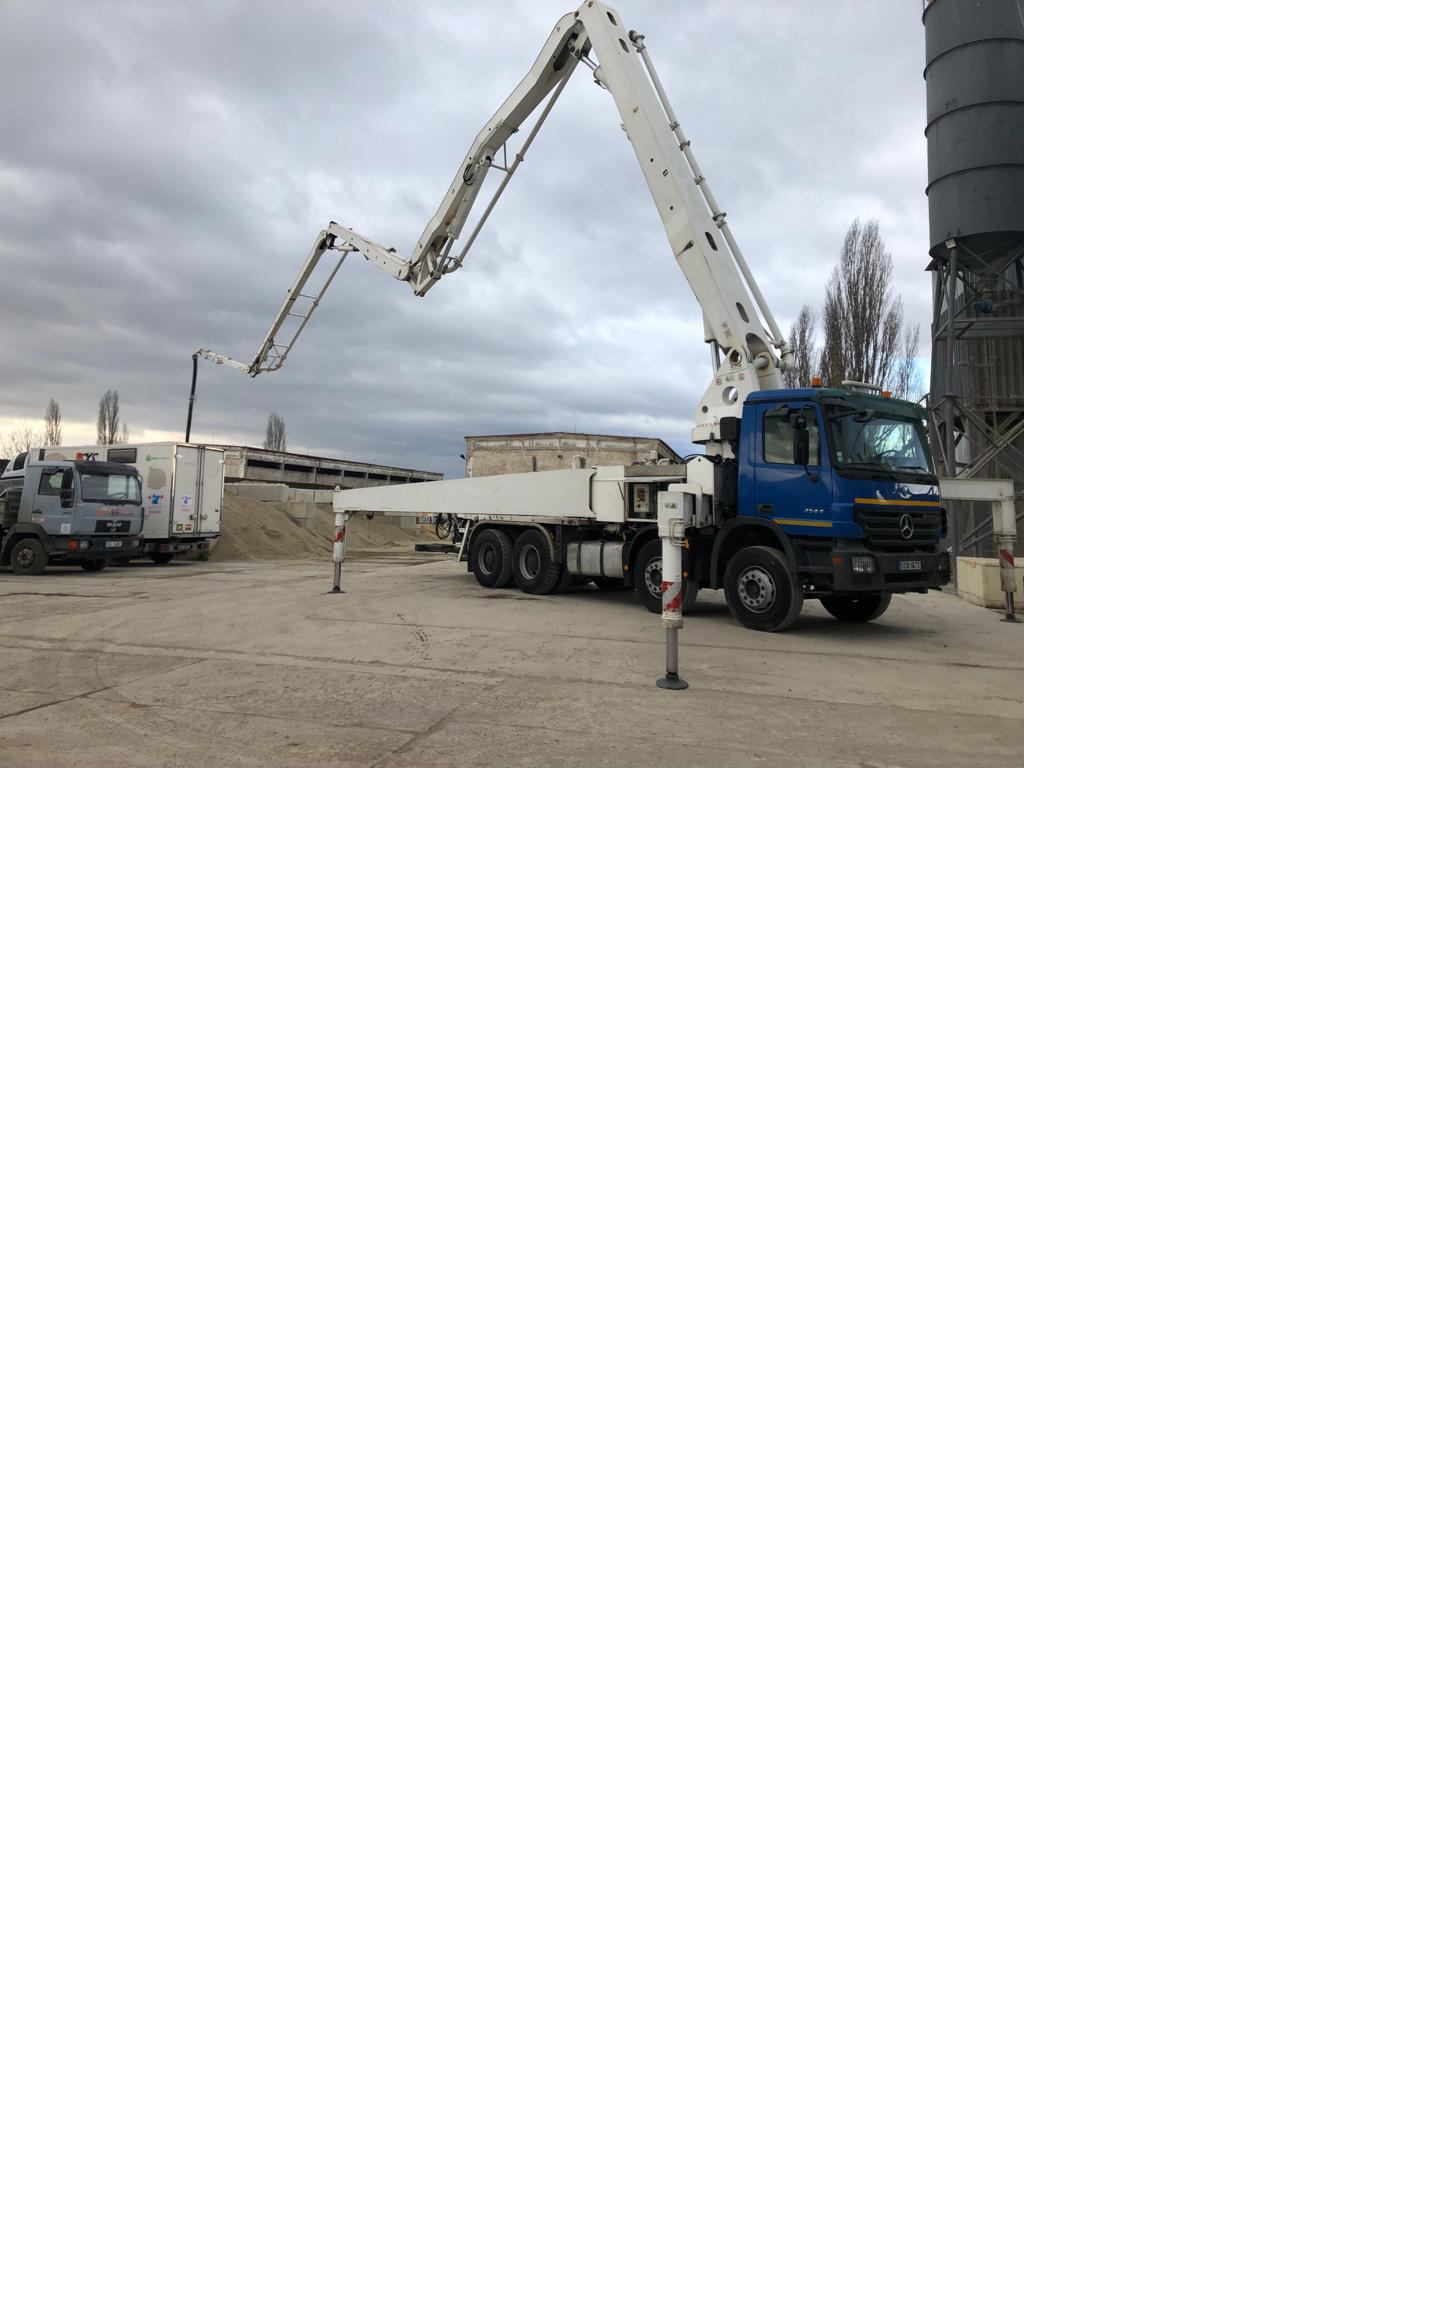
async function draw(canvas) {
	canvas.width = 1429;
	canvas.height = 2324;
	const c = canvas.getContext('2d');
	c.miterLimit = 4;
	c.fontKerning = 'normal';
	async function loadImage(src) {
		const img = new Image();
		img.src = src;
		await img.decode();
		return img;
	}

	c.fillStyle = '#fff';
	c.fillRect(0, 0, 1429, 2324);
	c.drawImage(await loadImage('img1.png'), 0, 0, 1024, 768);
}

draw(document.querySelector('canvas'));
